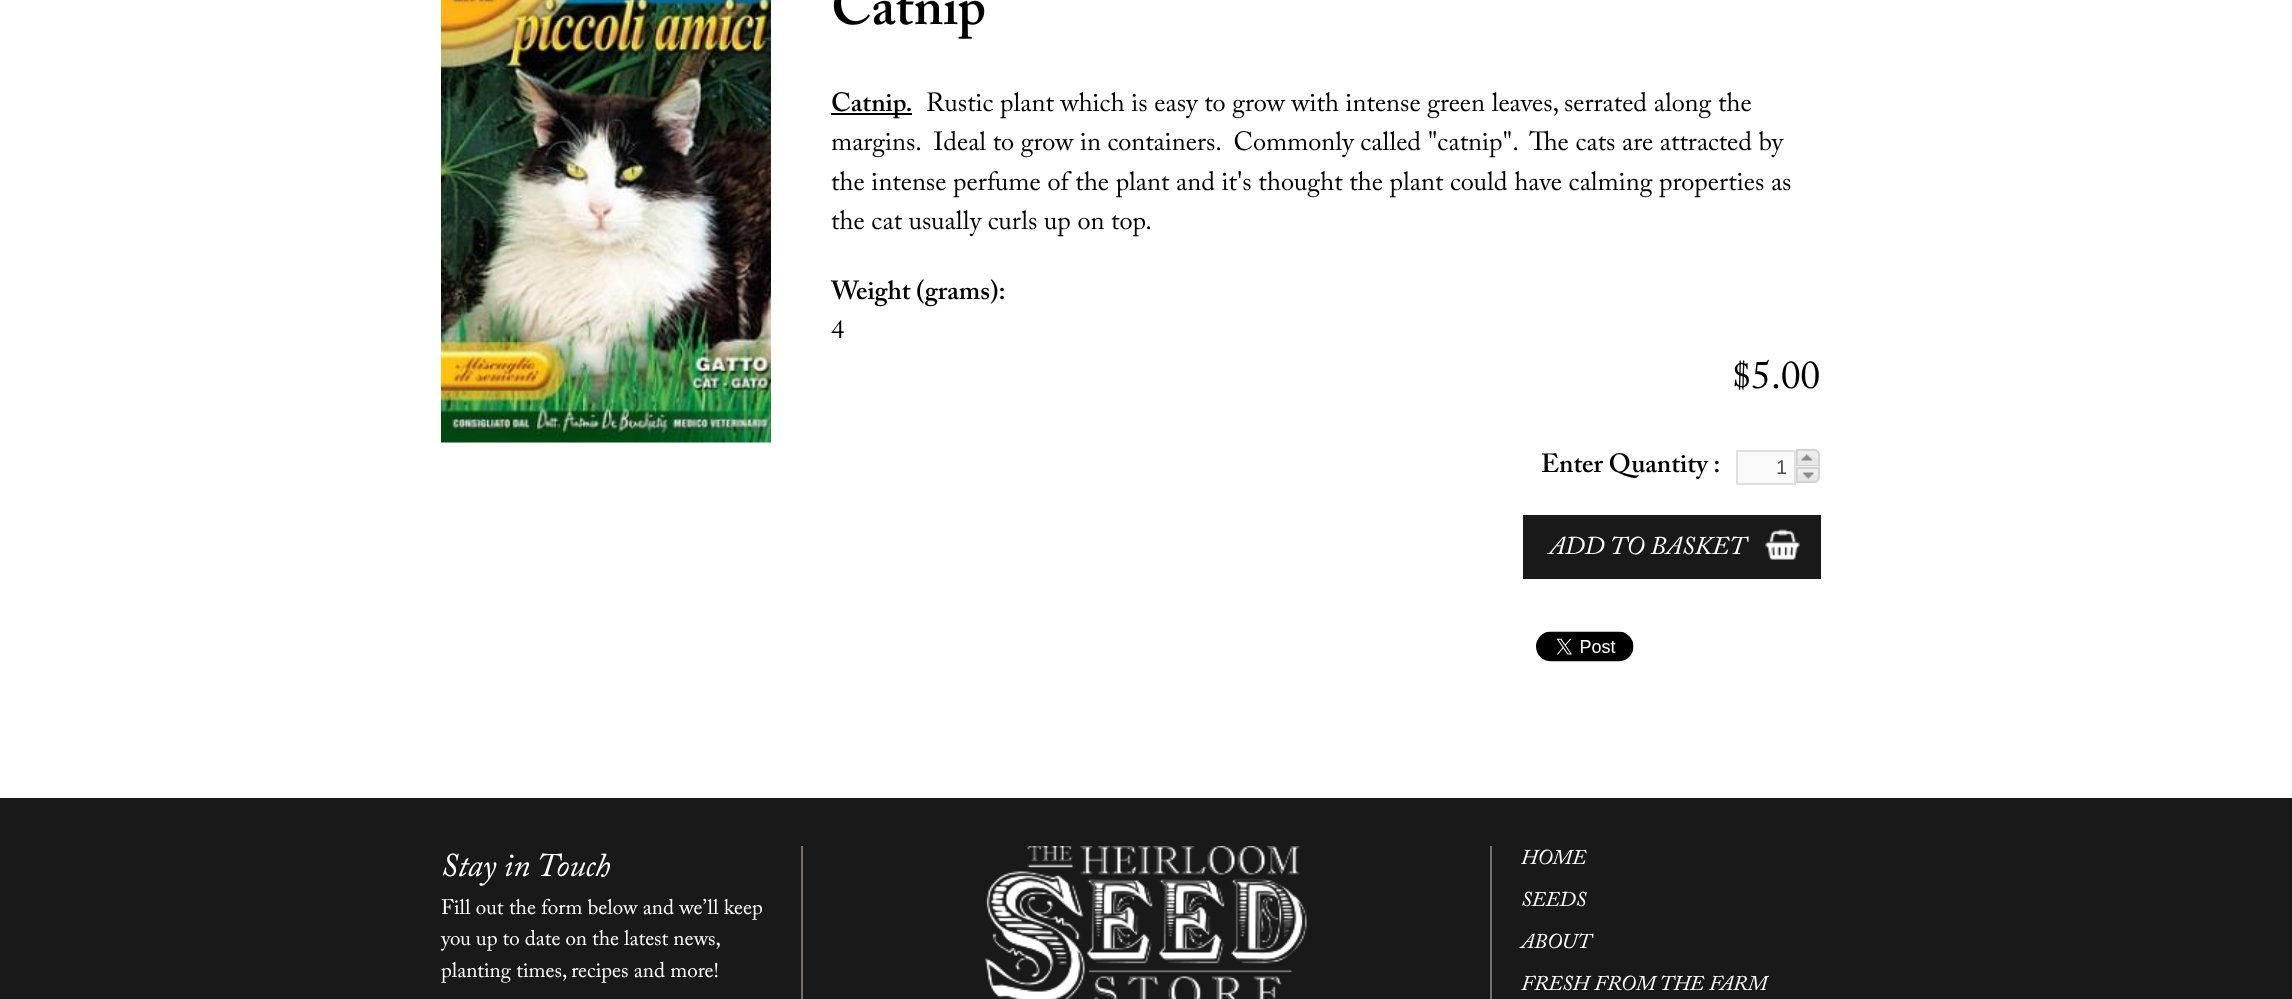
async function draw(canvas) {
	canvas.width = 2292;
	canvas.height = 999;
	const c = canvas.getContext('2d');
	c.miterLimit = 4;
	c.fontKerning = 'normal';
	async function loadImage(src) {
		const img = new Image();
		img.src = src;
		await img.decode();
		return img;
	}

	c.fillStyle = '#fff';
	c.fillRect(0, 0, 2292, 999);
	c.drawImage(await loadImage('img1.png'), 441, 0, 330, 443);
	c.font = '600 54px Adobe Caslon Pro';
	c.fillStyle = '#000';
	c.fillText('Catnip', 831, 24);
	c.fillRect(831, 113, 81, 2);
	c.font = '600 26.25px Adobe Caslon Pro';
	c.fillText('Catnip.', 831, 111);
	c.font = '26.25px Adobe Caslon Pro';
	for (const [text, x, y] of [
		['Rustic plant which is easy to grow with intense green leaves, serrated along the', 926, 111],
		['margins.  Ideal to grow in containers.  Commonly called "catnip".  The cats are attracted by', 831, 150],
		['the intense perfume of the plant and it\'s thought the plant could have calming properties as', 831, 190],
		['the cat usually curls up on top.', 831, 229],
	]) {
		c.fillText(text, x, y);
	}
	c.font = '600 26.25px Adobe Caslon Pro';
	c.fillText('Weight (grams):', 831, 299);
	c.font = '26.25px Adobe Caslon Pro';
	c.fillText('4', 831, 338);
	c.font = '39px Adobe Caslon Pro';
	c.fillText('$5.00', 1732, 388);
	c.font = '600 26.25px Adobe Caslon Pro';
	c.fillText('Enter Quantity :', 1541, 472);
	c.fillStyle = '#fbfafa';
	c.beginPath();
	c.rect(1737, 451, 58, 33);
	c.fill();
	c.strokeStyle = '#e0e0e0';
	c.lineWidth = 2;
	c.stroke();
	c.font = '20px Liberation Sans';
	c.fillStyle = '#4c4c4c';
	c.fillText('1', 1776, 474);
	c.fillStyle = '#e6e6e6';
	c.beginPath();
	c.roundRect(1796, 449, 24, 18, [0, 6, 0, 0]);
	c.fill();
	c.drawImage(await loadImage('img2.png'), 1795, 448, 24, 9);
	c.beginPath();
	c.roundRect(1797, 450, 22, 16, [0, 5, 0, 0]);
	c.strokeStyle = '#d3d3d3';
	c.stroke();
	c.drawImage(await loadImage('img3.png'), 1801, 454, 12, 7);
	c.beginPath();
	c.roundRect(1796, 467, 24, 16, [0, 0, 6, 0]);
	c.fill();
	c.fillStyle = '#ededed';
	c.fillRect(1796, 466, 23, 9);
	c.beginPath();
	c.roundRect(1797, 468, 22, 14, [0, 0, 5, 0]);
	c.stroke();
	c.drawImage(await loadImage('img4.png'), 1802, 472, 12, 7);
	c.fillStyle = '#191919';
	c.fillRect(1523, 515, 298, 64);
	c.drawImage(await loadImage('img5.png'), 1765, 529, 35, 31);
	c.font = 'italic 25.5px Adobe Caslon Pro';
	c.fillStyle = '#fff';
	c.fillText('ADD TO BASKET', 1549, 554);
	c.drawImage(await loadImage('img6.png'), 1536, 631, 98, 31);
	c.fillStyle = '#191919';
	c.fillRect(0, 798, 2292, 201);
	c.font = 'italic 33px Adobe Caslon Pro';
	c.fillStyle = '#fff';
	c.fillText('Stay in Touch', 441, 876);
	c.font = '21px Adobe Caslon Pro';
	c.fillText('Fill out the form below and we’ll keep', 441, 914);
	c.wordSpacing = '-0.25px';
	c.fillText('you up to date on the latest news,', 441, 945);
	c.wordSpacing = '0px';
	c.fillText('planting times, recipes and more!', 441, 977);
	c.fillStyle = '#767469';
	c.fillRect(1490, 846, 2, 153);
	c.fillRect(801, 846, 2, 153);
	c.drawImage(await loadImage('img7.png'), 985, 846, 322, 153);
	c.font = 'italic 21px Adobe Caslon Pro';
	c.fillStyle = '#fff';
	for (const [text, x, y] of [
		['HOME', 1521, 864],
		['SEEDS', 1521, 906],
		['ABOUT', 1521, 948],
		['FRESH FROM THE FARM', 1521, 990],
	]) {
		c.fillText(text, x, y);
	}
}

draw(document.querySelector('canvas'));
